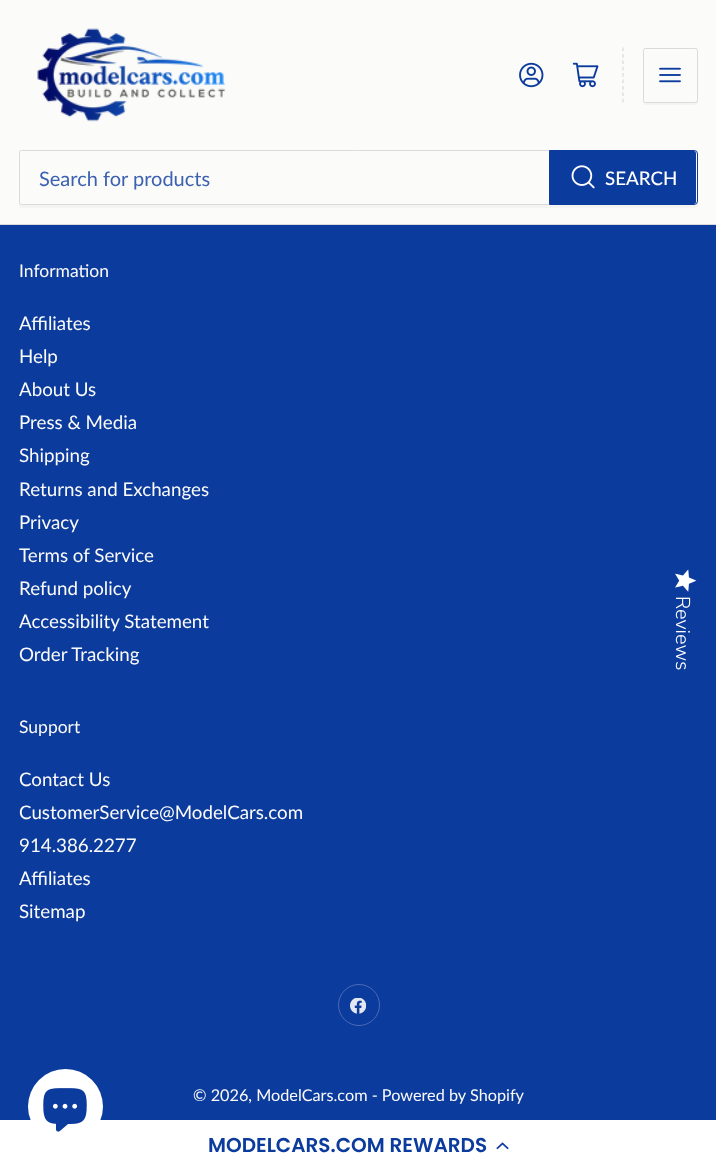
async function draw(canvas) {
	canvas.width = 716;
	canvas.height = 1170;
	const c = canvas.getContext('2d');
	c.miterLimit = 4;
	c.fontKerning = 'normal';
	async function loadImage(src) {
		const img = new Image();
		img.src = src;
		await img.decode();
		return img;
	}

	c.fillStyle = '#0c3b9e';
	c.fillRect(0, 0, 716, 1170);
	c.fillStyle = '#fbfbf9';
	c.fillRect(0, 0, 716, 224);
	c.fillStyle = '#dadada';
	c.fillRect(0, 224, 716, 1);
	c.drawImage(await loadImage('img1.png'), 37, 28, 189, 94);
	c.drawImage(await loadImage('img2.png'), 519, 62, 25, 26);
	c.drawImage(await loadImage('img3.png'), 572, 62, 27, 26);
	c.beginPath();
	c.moveTo(623, 47.5);
	c.lineTo(623, 102.5);
	c.strokeStyle = '#dadada';
	c.lineWidth = 1.2;
	c.setLineDash([3.75, 2.65]);
	c.stroke();
	c.fillStyle = '#f4f4f3';
	c.beginPath();
	c.moveTo(643, 102);
	c.bezierCurveTo(643, 104, 644, 105, 646, 105);
	c.lineTo(696, 105);
	c.bezierCurveTo(697, 105, 698, 104, 698, 102);
	c.lineTo(698, 52);
	c.lineTo(698, 51);
	c.lineTo(698, 100);
	c.bezierCurveTo(698, 101, 696, 102, 695, 102);
	c.lineTo(645, 102);
	c.bezierCurveTo(644, 102, 643, 102, 643, 102);
	c.closePath();
	c.fill();
	c.beginPath();
	c.roundRect(643.5, 48.5, 54, 54, 2);
	c.lineWidth = 1;
	c.setLineDash([]);
	c.stroke();
	c.drawImage(await loadImage('img4.png'), 659, 67, 22, 16);
	c.beginPath();
	c.moveTo(19, 204);
	c.lineTo(19, 206);
	c.bezierCurveTo(19, 207, 20, 208, 22, 208);
	c.lineTo(696, 208);
	c.bezierCurveTo(697, 208, 698, 207, 698, 206);
	c.lineTo(698, 156);
	c.lineTo(698, 154);
	c.lineTo(698, 202);
	c.bezierCurveTo(698, 204, 696, 205, 695, 205);
	c.lineTo(21, 205);
	c.bezierCurveTo(20, 205, 19, 204, 19, 204);
	c.closePath();
	c.fill();
	c.fillStyle = '#fbfbf9';
	c.beginPath();
	c.roundRect(19.5, 150.5, 678, 54, 2);
	c.fill();
	c.stroke();
	c.font = '20px Lato';
	c.fillStyle = '#3c61b0';
	c.fillText('Search for products', 39, 186);
	c.beginPath();
	c.roundRect(549.5, 150.5, 148, 54, [0, 3.5, 3.5, 0]);
	c.strokeStyle = '#0c3b9e';
	c.stroke();
	c.fillStyle = '#0c3b9e';
	c.beginPath();
	c.roundRect(550, 151, 146, 53, [0, 2.5, 2.5, 0]);
	c.fill();
	c.drawImage(await loadImage('img5.png'), 571, 165, 24, 24);
	c.font = '500 18.75px Lato';
	c.fillStyle = '#fff';
	c.fillText('SEARCH', 605, 185);
	c.font = '17.5px Lato';
	c.fillStyle = '#fbfbf9';
	c.fillText('Information', 19, 277);
	c.font = '18.75px Lato';
	for (const [text, x, y] of [
		['Affiliates', 19, 330],
		['Help', 19, 363],
		['About Us', 19, 396],
		['Press & Media', 19, 429],
		['Shipping', 19, 462],
		['Returns and Exchanges', 19, 496],
		['Privacy', 19, 529],
		['Terms of Service', 19, 562],
		['Refund policy', 19, 595],
		['Accessibility Statement', 19, 628],
		['Order Tracking', 19, 661],
	]) {
		c.fillText(text, x, y);
	}
	c.font = '17.5px Lato';
	c.fillText('Support', 19, 733);
	c.font = '18.75px Lato';
	for (const [text, x, y] of [
		['Contact Us', 19, 786],
		['CustomerService@ModelCars.com', 19, 819],
		['914.386.2277', 19, 852],
		['Affiliates', 19, 885],
		['Sitemap', 19, 918],
	]) {
		c.fillText(text, x, y);
	}
	c.beginPath();
	c.arc(359, 1005, 20.5, 0, 2 * Math.PI);
	c.strokeStyle = '#486bb5';
	c.stroke();
	c.drawImage(await loadImage('img6.png'), 350, 998, 16, 16);
	c.font = '16.25px Lato';
	c.fillText('© 2026, ModelCars.com - Powered by Shopify', 193, 1101);
	c.drawImage(await loadImage('img7.png'), 675, 569, 22, 23);
	c.font = '300 20px Nunito Sans';
	c.fillStyle = '#fff';
	c.save();
	c.translate(676, 596);
	c.rotate(90 * Math.PI / 180);
	c.fillText('Reviews', 0, 0);
	c.restore();
	c.fillRect(0, 1120, 716, 50);
	c.beginPath();
	c.arc(65.5, 1106.5, 37.5, 0, 2 * Math.PI);
	c.fill();
	c.drawImage(await loadImage('img8.png'), 43, 1088, 44, 44);
	c.font = '600 20px Poppins';
	c.fillStyle = '#0c3b9e';
	c.fillText('MODELCARS.COM REWARDS', 208, 1152);
	c.drawImage(await loadImage('img9.png'), 496, 1142, 13, 8);
}

draw(document.querySelector('canvas'));
